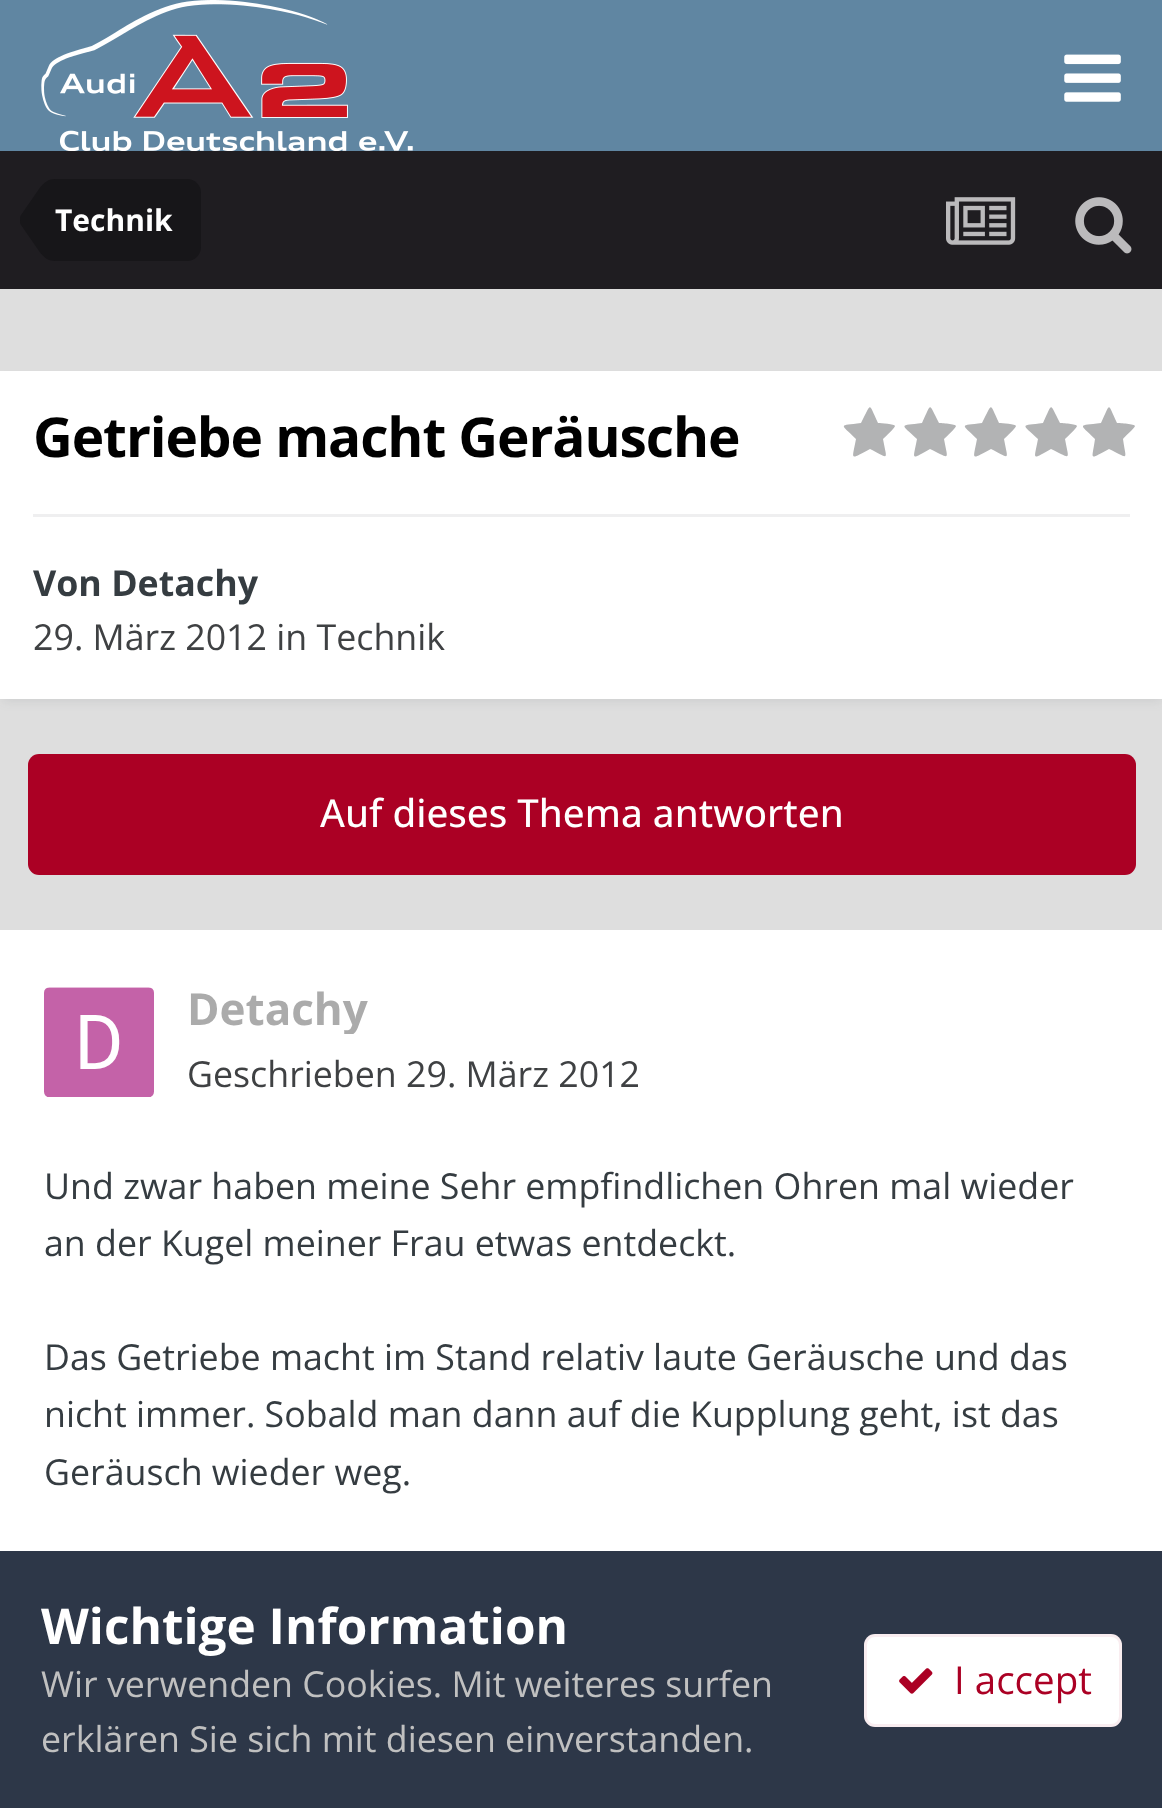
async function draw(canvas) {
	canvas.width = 1162;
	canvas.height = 1808;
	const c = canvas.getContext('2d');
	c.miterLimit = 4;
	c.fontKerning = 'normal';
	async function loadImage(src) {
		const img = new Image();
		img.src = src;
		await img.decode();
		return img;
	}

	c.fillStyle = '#dedede';
	c.fillRect(0, 0, 1162, 1808);
	c.fillStyle = '#6086a2';
	c.fillRect(0, 0, 1162, 151);
	c.drawImage(await loadImage('img1.png'), 41, 0, 372, 151);
	c.drawImage(await loadImage('img2.png'), 1064, 54, 57, 48);
	c.fillStyle = '#1f1d21';
	c.fillRect(0, 151, 1162, 138);
	c.fillStyle = '#171619';
	c.beginPath();
	c.roundRect(55, 179, 146, 82, [0, 14, 14, 0]);
	c.fill();
	c.beginPath();
	c.moveTo(55, 220);
	c.lineTo(55, 261);
	c.bezierCurveTo(49, 261, 44, 258, 39, 251);
	c.lineTo(21, 225);
	c.bezierCurveTo(20, 224, 20, 222, 20, 220);
	c.closePath();
	c.fill();
	c.beginPath();
	c.moveTo(55, 220);
	c.lineTo(20, 220);
	c.bezierCurveTo(20, 218, 20, 216, 21, 215);
	c.lineTo(39, 189);
	c.bezierCurveTo(44, 182, 49, 179, 55, 179);
	c.closePath();
	c.fill();
	c.font = 'bold 30px Open Sans';
	c.fillStyle = '#fff';
	c.fillText('Technik', 55, 231);
	c.drawImage(await loadImage('img3.png'), 946, 197, 70, 48);
	c.drawImage(await loadImage('img4.png'), 1075, 197, 57, 57);
	c.fillStyle = '#2d37481a';
	c.filter = 'blur(5.5px)';
	c.beginPath();
	c.rect(3, 380, 1158, 321);
	c.fill();
	c.filter = 'none';
	c.fillStyle = '#fff';
	c.fillRect(0, 371, 1162, 328);
	c.letterSpacing = '-1.1px';
	c.font = 'bold 55px Open Sans';
	c.fillStyle = '#000';
	c.fillText('Getriebe macht Geräusche', 33, 457);
	c.fillStyle = '#b2b3b4';
	c.beginPath();
	c.moveTo(895, 426);
	c.bezierCurveTo(895, 428, 885, 437, 883, 439);
	c.bezierCurveTo(887, 461, 890, 459, 870, 449);
	c.bezierCurveTo(849, 460, 852, 461, 856, 439);
	c.bezierCurveTo(840, 423, 838, 426, 861, 423);
	c.bezierCurveTo(872, 402, 868, 402, 878, 423);
	c.bezierCurveTo(881, 423, 895, 424, 895, 426);
	c.closePath();
	c.fill();
	c.beginPath();
	c.moveTo(956, 426);
	c.bezierCurveTo(956, 428, 946, 437, 944, 439);
	c.bezierCurveTo(948, 461, 951, 459, 930, 449);
	c.bezierCurveTo(910, 460, 913, 461, 917, 439);
	c.bezierCurveTo(900, 423, 899, 426, 922, 423);
	c.bezierCurveTo(932, 402, 928, 402, 939, 423);
	c.bezierCurveTo(941, 423, 956, 424, 956, 426);
	c.closePath();
	c.fill();
	c.beginPath();
	c.moveTo(1016, 426);
	c.bezierCurveTo(1016, 428, 1006, 437, 1004, 439);
	c.bezierCurveTo(1008, 461, 1011, 459, 991, 449);
	c.bezierCurveTo(970, 460, 973, 461, 977, 439);
	c.bezierCurveTo(961, 423, 959, 426, 982, 423);
	c.bezierCurveTo(993, 402, 989, 402, 999, 423);
	c.bezierCurveTo(1002, 423, 1016, 424, 1016, 426);
	c.closePath();
	c.fill();
	c.beginPath();
	c.moveTo(1077, 426);
	c.bezierCurveTo(1077, 428, 1067, 437, 1065, 439);
	c.bezierCurveTo(1069, 461, 1072, 459, 1051, 449);
	c.bezierCurveTo(1031, 460, 1034, 461, 1038, 439);
	c.bezierCurveTo(1021, 423, 1020, 426, 1043, 423);
	c.bezierCurveTo(1053, 402, 1049, 402, 1060, 423);
	c.bezierCurveTo(1062, 423, 1077, 424, 1077, 426);
	c.closePath();
	c.fill();
	c.beginPath();
	c.moveTo(1135, 426);
	c.bezierCurveTo(1135, 428, 1124, 437, 1123, 439);
	c.bezierCurveTo(1126, 461, 1130, 459, 1109, 449);
	c.bezierCurveTo(1088, 460, 1092, 461, 1095, 439);
	c.bezierCurveTo(1079, 423, 1077, 426, 1101, 423);
	c.bezierCurveTo(1111, 402, 1107, 402, 1117, 423);
	c.bezierCurveTo(1120, 423, 1135, 424, 1135, 426);
	c.closePath();
	c.fill();
	c.fillStyle = '#efeff0';
	c.fillRect(33, 514, 1097, 3);
	c.letterSpacing = '0px';
	c.font = 'bold 35.75px Open Sans';
	c.fillStyle = '#353c41';
	c.fillText('Von Detachy', 33, 596);
	c.font = '35.75px Open Sans';
	c.fillStyle = '#3f4143';
	c.fillText('29. März 2012 in Technik', 33, 650);
	c.fillStyle = '#ab0024';
	c.beginPath();
	c.roundRect(28, 754, 1108, 121, 11);
	c.fill();
	c.font = '500 38.5px Open Sans';
	c.fillStyle = '#fff';
	c.fillText('Auf dieses Thema antworten', 320, 827);
	c.fillRect(0, 930, 1162, 621);
	c.drawImage(await loadImage('img5.png'), 44, 987, 110, 110);
	c.save();
	c.beginPath();
	c.rect(187, 985, 182, 49);
	c.clip();
	c.font = 'bold 44px Open Sans';
	c.fillStyle = '#ababab';
	c.fillText('Detachy', 187, 1025);
	c.restore();
	c.font = '35.75px Open Sans';
	c.fillStyle = '#3f4143';
	c.fillText('Geschrieben 29. März 2012', 187, 1087);
	c.fillStyle = '#353c41';
	for (const [text, x, y] of [
		['Und zwar haben meine Sehr empfindlichen Ohren mal wieder', 44, 1199],
		['an der Kugel meiner Frau etwas entdeckt.', 44, 1256],
		['Das Getriebe macht im Stand relativ laute Geräusche und das', 44, 1370],
		['nicht immer. Sobald man dann auf die Kupplung geht, ist das', 44, 1427],
		['Geräusch wieder weg.', 44, 1485],
	]) {
		c.fillText(text, x, y);
	}
	c.fillStyle = '#2d3748';
	c.fillRect(0, 1551, 1162, 257);
	c.font = 'bold 49.5px Open Sans';
	c.fillStyle = '#fff';
	c.fillText('Wichtige Information', 41, 1644);
	c.font = '35.75px Open Sans';
	c.fillStyle = '#c0c0c0';
	c.fillText('Wir verwenden Cookies. Mit weiteres surfen', 41, 1697);
	c.fillText('erklären Sie sich mit diesen einverstanden.', 41, 1752);
	c.fillStyle = '#fff';
	c.beginPath();
	c.roundRect(864, 1634, 258, 93, 11);
	c.fill();
	c.beginPath();
	c.roundRect(865.5, 1635.5, 255, 90, 9.5);
	c.strokeStyle = '#ab002412';
	c.lineWidth = 3;
	c.stroke();
	c.drawImage(await loadImage('img6.png'), 899, 1668, 34, 26);
	c.font = '38.5px Open Sans';
	c.fillStyle = '#ab0024';
	c.fillText('I accept', 954, 1694);
}

draw(document.querySelector('canvas'));
